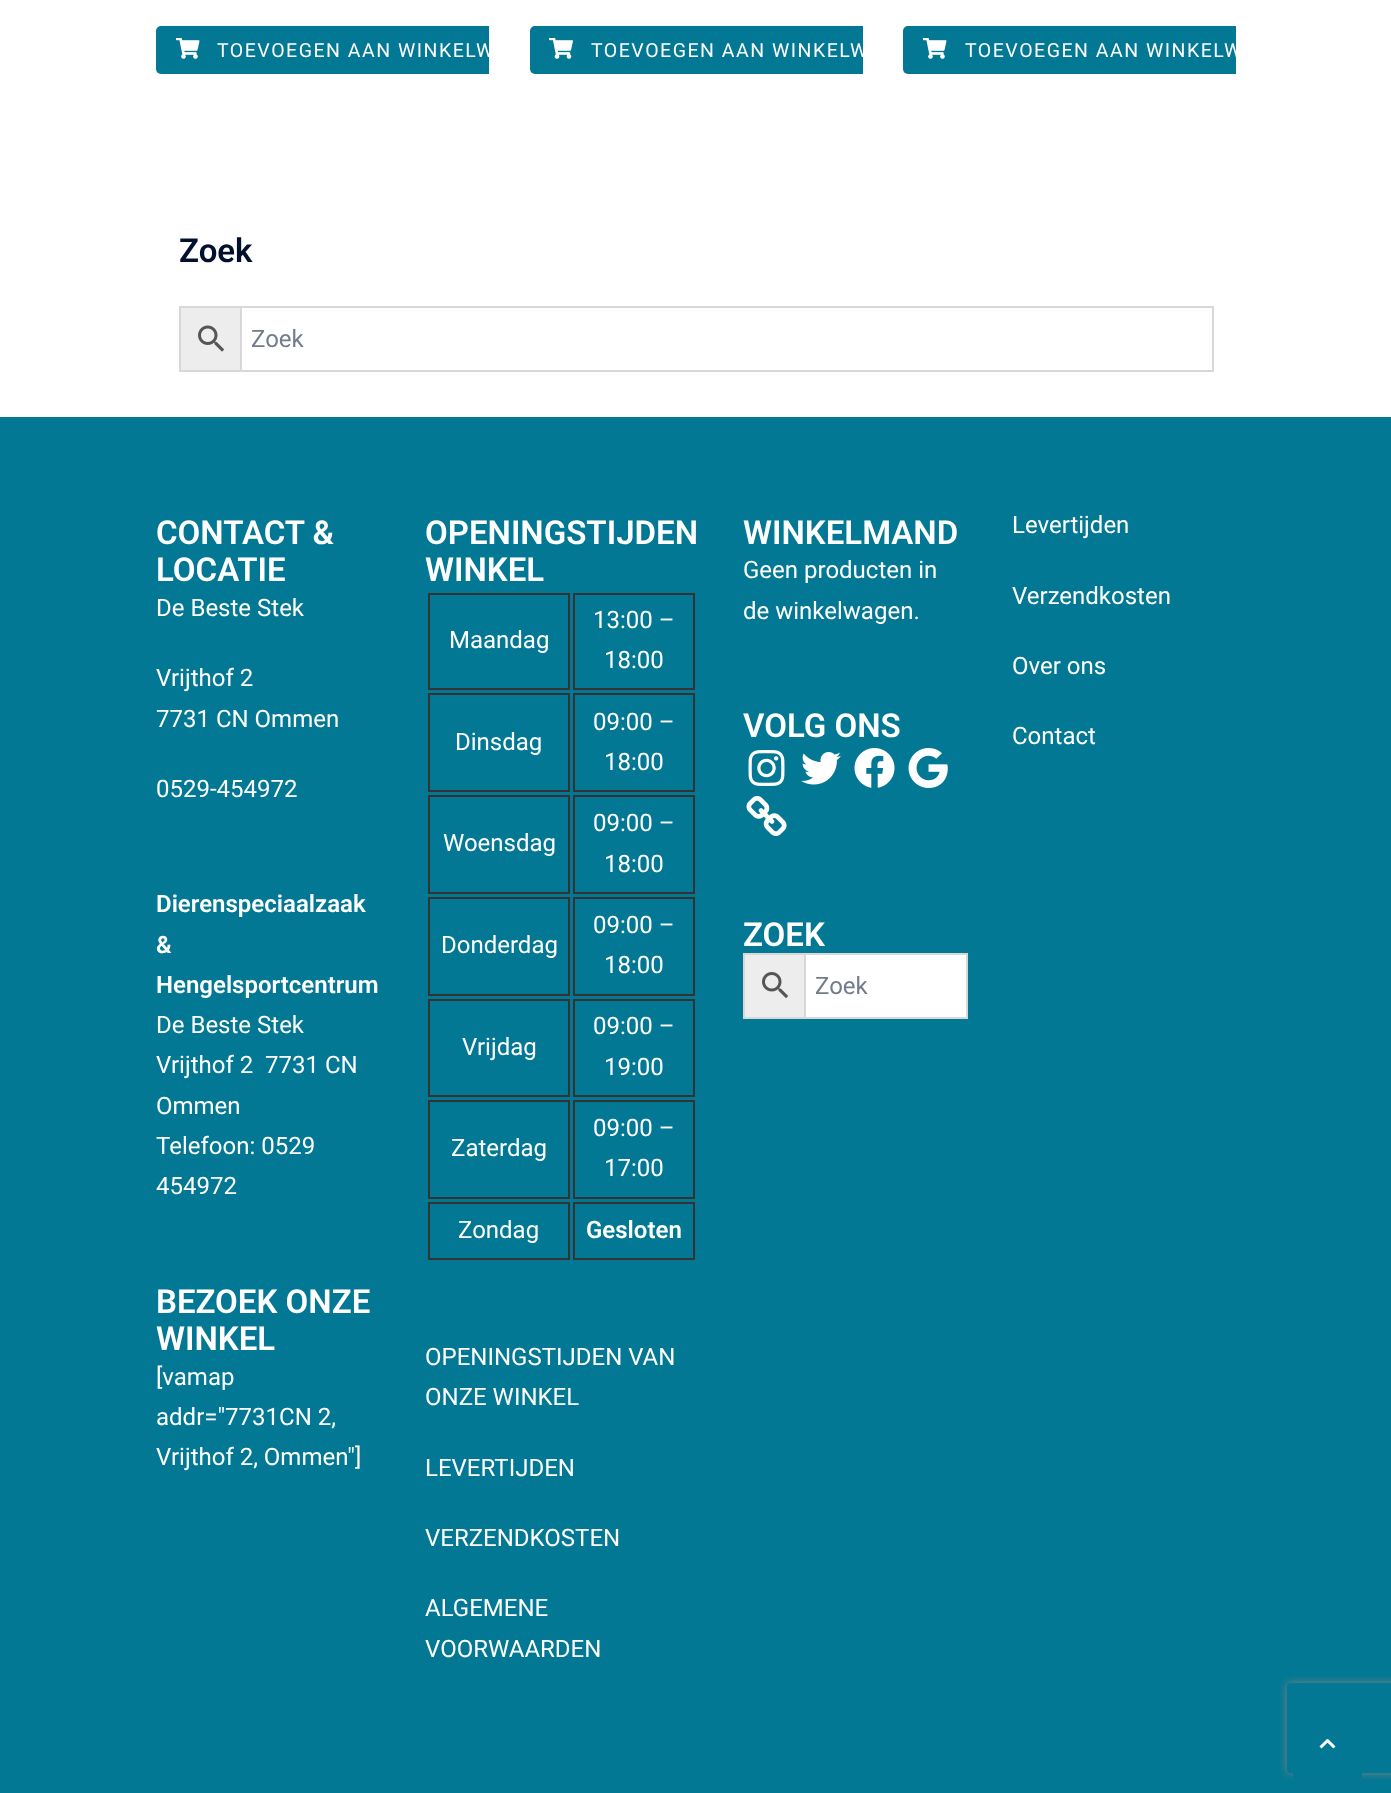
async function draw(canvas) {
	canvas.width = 1391;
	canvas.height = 1793;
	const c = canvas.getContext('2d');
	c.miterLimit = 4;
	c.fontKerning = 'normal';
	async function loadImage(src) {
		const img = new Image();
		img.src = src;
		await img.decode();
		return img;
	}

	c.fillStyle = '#fff';
	c.fillRect(0, 0, 1391, 1793);
	c.fillStyle = '#027894';
	c.beginPath();
	c.roundRect(156, 26, 333, 48, [5, 0, 0, 5]);
	c.fill();
	c.drawImage(await loadImage('img1.png'), 176, 38, 24, 21);
	c.save();
	c.beginPath();
	c.rect(156, 0, 333, 92);
	c.clip();
	c.letterSpacing = '1.5px';
	c.font = '19.5px Roboto';
	c.fillStyle = '#fff';
	c.fillText('TOEVOEGEN AAN WINKELW', 217, 57);
	c.restore();
	c.beginPath();
	c.roundRect(530, 26, 333, 48, [5, 0, 0, 5]);
	c.fill();
	c.drawImage(await loadImage('img2.png'), 549, 38, 24, 21);
	c.save();
	c.beginPath();
	c.rect(530, 0, 333, 92);
	c.clip();
	c.letterSpacing = '1.5px';
	c.font = '19.5px Roboto';
	c.fillStyle = '#fff';
	c.fillText('TOEVOEGEN AAN WINKELW', 591, 57);
	c.restore();
	c.beginPath();
	c.roundRect(903, 26, 333, 48, [5, 0, 0, 5]);
	c.fill();
	c.drawImage(await loadImage('img1.png'), 923, 38, 24, 21);
	c.save();
	c.beginPath();
	c.rect(903, 0, 333, 164);
	c.clip();
	c.letterSpacing = '1.5px';
	c.font = '19.5px Roboto';
	c.fillStyle = '#fff';
	c.fillText('TOEVOEGEN AAN WINKELW', 965, 57);
	c.restore();
	c.font = '600 33px Roboto';
	c.fillStyle = '#00102e';
	c.fillText('Zoek', 179, 262);
	c.fillStyle = '#ededed';
	c.beginPath();
	c.rect(180, 307, 61, 64);
	c.fill();
	c.strokeStyle = '#d8d8d8';
	c.lineWidth = 2;
	c.stroke();
	c.drawImage(await loadImage('img3.png'), 198, 325, 27, 27);
	c.strokeRect(241, 307, 972, 64);
	c.font = '24px Roboto';
	c.fillStyle = '#737c8c';
	c.fillText('Zoek', 251, 347);
	c.fillStyle = '#027894';
	c.fillRect(0, 417, 1391, 1376);
	c.font = '600 33px Roboto';
	c.fillStyle = '#fff';
	c.fillText('CONTACT &', 156, 544);
	c.fillText('LOCATIE', 156, 581);
	c.font = '24px Roboto';
	for (const [text, x, y] of [
		['De Beste Stek', 156, 616],
		['Vrijthof 2', 156, 686],
		['7731 CN Ommen', 156, 727],
		['0529-454972', 156, 797],
	]) {
		c.fillText(text, x, y);
	}
	c.font = '600 24px Roboto';
	for (const [text, x, y] of [
		['Dierenspeciaalzaak', 156, 912],
		['&', 156, 953],
		['Hengelsportcentrum', 156, 993],
	]) {
		c.fillText(text, x, y);
	}
	c.font = '24px Roboto';
	for (const [text, x, y] of [
		['De Beste Stek', 156, 1033],
		['Vrijthof 2  7731 CN', 156, 1073],
		['Ommen', 156, 1114],
		['Telefoon: 0529', 156, 1154],
		['454972', 156, 1194],
	]) {
		c.fillText(text, x, y);
	}
	c.font = '600 33px Roboto';
	c.fillText('BEZOEK ONZE', 156, 1313);
	c.fillText('WINKEL', 156, 1350);
	c.font = '24px Roboto';
	for (const [text, x, y] of [
		['[vamap', 156, 1385],
		['addr="7731CN 2,', 156, 1425],
		['Vrijthof 2, Ommen"]', 156, 1465],
	]) {
		c.fillText(text, x, y);
	}
	c.font = '600 33px Roboto';
	c.fillText('OPENINGSTIJDEN', 425, 544);
	c.fillText('WINKEL', 425, 581);
	c.strokeStyle = '#333';
	c.strokeRect(429, 594, 140, 95);
	c.font = '24px Roboto';
	c.fillText('Maandag', 449, 648);
	c.strokeRect(574, 594, 120, 95);
	c.fillText('13:00 –', 593, 628);
	c.fillText('18:00', 604, 668);
	c.strokeRect(429, 694, 140, 97);
	c.fillText('Dinsdag', 455, 750);
	c.strokeRect(574, 694, 120, 97);
	c.fillText('09:00 –', 593, 730);
	c.fillText('18:00', 604, 770);
	c.strokeRect(429, 796, 140, 97);
	c.fillText('Woensdag', 443, 851);
	c.strokeRect(574, 796, 120, 97);
	c.fillText('09:00 –', 593, 831);
	c.fillText('18:00', 604, 872);
	c.strokeRect(429, 898, 140, 97);
	c.fillText('Donderdag', 441, 953);
	c.strokeRect(574, 898, 120, 97);
	c.fillText('09:00 –', 593, 933);
	c.fillText('18:00', 604, 973);
	c.strokeRect(429, 1000, 140, 96);
	c.fillText('Vrijdag', 462, 1055);
	c.strokeRect(574, 1000, 120, 96);
	c.fillText('09:00 –', 593, 1034);
	c.fillText('19:00', 604, 1075);
	c.strokeRect(429, 1101, 140, 97);
	c.fillText('Zaterdag', 451, 1156);
	c.strokeRect(574, 1101, 120, 97);
	c.fillText('09:00 –', 593, 1136);
	c.fillText('17:00', 604, 1176);
	c.strokeRect(429, 1203, 140, 56);
	c.fillText('Zondag', 458, 1238);
	c.strokeRect(574, 1203, 120, 56);
	c.font = '600 24px Roboto';
	c.fillText('Gesloten', 586, 1238);
	c.font = '24px Roboto';
	for (const [text, x, y] of [
		['OPENINGSTIJDEN VAN', 425, 1365],
		['ONZE WINKEL', 425, 1405],
		['LEVERTIJDEN', 425, 1476],
		['VERZENDKOSTEN', 425, 1546],
		['ALGEMENE', 425, 1616],
		['VOORWAARDEN', 425, 1657],
	]) {
		c.fillText(text, x, y);
	}
	c.font = '600 33px Roboto';
	c.fillText('WINKELMAND', 743, 544);
	c.font = '24px Roboto';
	c.fillText('Geen producten in', 743, 578);
	c.fillText('de winkelwagen.', 743, 619);
	c.font = '600 33px Roboto';
	c.fillText('VOLG ONS', 743, 737);
	c.drawImage(await loadImage('img4.png'), 748, 750, 37, 36);
	c.drawImage(await loadImage('img5.png'), 801, 752, 40, 33);
	c.drawImage(await loadImage('img6.png'), 854, 748, 41, 40);
	c.drawImage(await loadImage('img7.png'), 908, 748, 40, 40);
	c.drawImage(await loadImage('img8.png'), 746, 796, 41, 40);
	c.fillText('ZOEK', 743, 946);
	c.fillStyle = '#ededed';
	c.beginPath();
	c.rect(744, 954, 61, 64);
	c.fill();
	c.strokeStyle = '#d8d8d8';
	c.stroke();
	c.drawImage(await loadImage('img9.png'), 762, 972, 27, 27);
	c.fillStyle = '#fff';
	c.beginPath();
	c.rect(805, 954, 162, 64);
	c.fill();
	c.stroke();
	c.font = '24px Roboto';
	c.fillStyle = '#737c8c';
	c.fillText('Zoek', 815, 994);
	c.fillStyle = '#fff';
	for (const [text, x, y] of [
		['Levertijden', 1012, 533],
		['Verzendkosten', 1012, 604],
		['Over ons', 1012, 674],
		['Contact', 1012, 744],
	]) {
		c.fillText(text, x, y);
	}
	c.save();
	c.beginPath();
	c.moveTo(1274, 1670);
	c.lineTo(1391, 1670);
	c.lineTo(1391, 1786);
	c.lineTo(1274, 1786);
	c.closePath();
	c.moveTo(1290, 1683);
	c.lineTo(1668, 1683);
	c.bezierCurveTo(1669.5, 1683, 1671, 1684.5, 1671, 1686);
	c.lineTo(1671, 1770);
	c.bezierCurveTo(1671, 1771.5, 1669.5, 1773, 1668, 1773);
	c.lineTo(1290, 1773);
	c.bezierCurveTo(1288.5, 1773, 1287, 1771.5, 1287, 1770);
	c.lineTo(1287, 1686);
	c.bezierCurveTo(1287, 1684.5, 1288.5, 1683, 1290, 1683);
	c.closePath();
	c.clip('evenodd');
	c.fillStyle = '#808080';
	c.filter = 'blur(4px)';
	c.beginPath();
	c.roundRect(1287, 1683, 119, 90, 3);
	c.fill();
	c.filter = 'none';
	c.restore();
	c.fillStyle = '#027894';
	c.beginPath();
	c.roundRect(1293, 1710, 69, 69, 3);
	c.fill();
	c.beginPath();
	c.moveTo(1320.5, 1747.5);
	c.lineTo(1327.5, 1740.5);
	c.lineTo(1334.5, 1747.5);
	c.strokeStyle = '#fff';
	c.lineWidth = 3;
	c.lineJoin = 'round';
	c.stroke();
}

draw(document.querySelector('canvas'));
